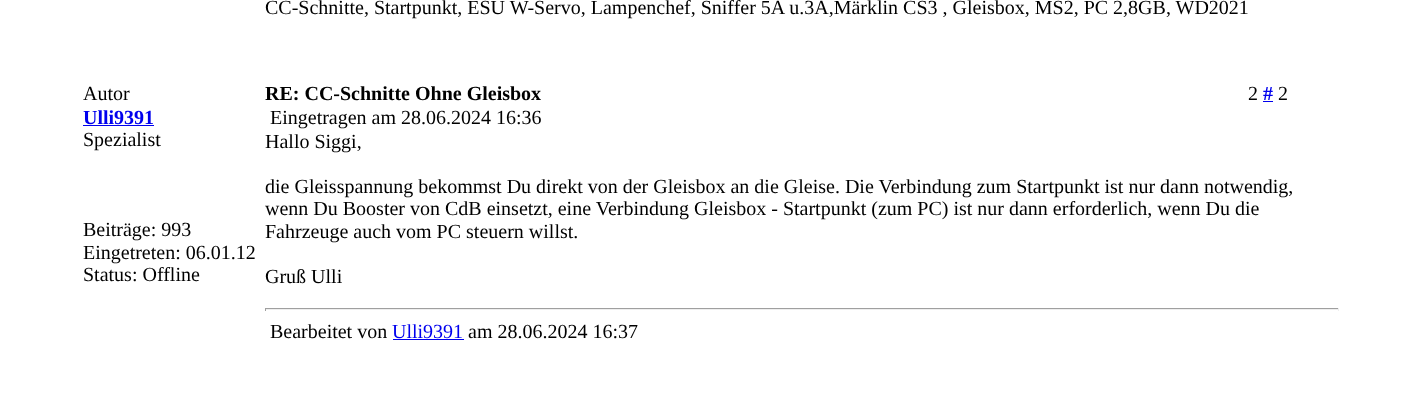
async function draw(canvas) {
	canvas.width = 1421;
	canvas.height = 402;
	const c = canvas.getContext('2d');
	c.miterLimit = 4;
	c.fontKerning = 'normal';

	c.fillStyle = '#fff';
	c.fillRect(0, 0, 1421, 402);
	c.font = '20px Liberation Serif';
	c.fillStyle = '#000';
	c.fillText('CC-Schnitte, Startpunkt, ESU W-Servo, Lampenchef, Sniffer 5A u.3A,Märklin CS3 , Gleisbox, MS2, PC 2,8GB, WD2021', 265, 14);
	c.fillText('Autor', 83, 100);
	c.font = 'bold 20px Liberation Serif';
	c.fillText('RE: CC-Schnitte Ohne Gleisbox', 265, 100);
	c.font = '20px Liberation Serif';
	c.fillText('2', 1248, 100);
	c.font = 'bold 20px Liberation Serif';
	c.fillStyle = '#00e';
	c.fillText('#', 1263, 100);
	c.fillRect(1263, 101, 10, 1);
	c.font = '20px Liberation Serif';
	c.fillStyle = '#000';
	c.fillText('2', 1278, 100);
	c.font = 'bold 20px Liberation Serif';
	c.fillStyle = '#00e';
	c.fillText('Ulli9391', 83, 124);
	c.fillRect(83, 125, 71, 1);
	c.font = '20px Liberation Serif';
	c.fillStyle = '#000';
	for (const [text, x, y] of [
		['Spezialist', 83, 146],
		['Beiträge: 993', 83, 236],
		['Eingetreten: 06.01.12', 83, 259],
		['Status: Offline', 83, 281],
		['Eingetragen am 28.06.2024 16:36', 270, 124],
		['Hallo Siggi,', 265, 148],
		['die Gleisspannung bekommst Du direkt von der Gleisbox an die Gleise. Die Verbindung zum Startpunkt ist nur dann notwendig,', 265, 193],
		['wenn Du Booster von CdB einsetzt, eine Verbindung Gleisbox - Startpunkt (zum PC) ist nur dann erforderlich, wenn Du die', 265, 215],
		['Fahrzeuge auch vom PC steuern willst.', 265, 238],
		['Gruß Ulli', 265, 283],
	]) {
		c.fillText(text, x, y);
	}
	for (const [x, y, w, h, color] of [
		[265, 308, 1074, 1, '#9f9f9f'],
		[1338, 308, 1, 3, '#eee'],
		[265, 309, 1074, 1, '#eee'],
		[265, 308, 1, 3, '#9f9f9f'],
	]) {
		c.fillStyle = color;
		c.fillRect(x, y, w, h);
	}
	c.fillStyle = '#000';
	c.fillText('Bearbeitet von', 270, 338);
	c.fillStyle = '#00e';
	c.fillText('Ulli9391', 392, 338);
	c.fillRect(393, 339, 71, 1);
	c.fillStyle = '#000';
	c.fillText('am 28.06.2024 16:37', 468, 338);
}

draw(document.querySelector('canvas'));
